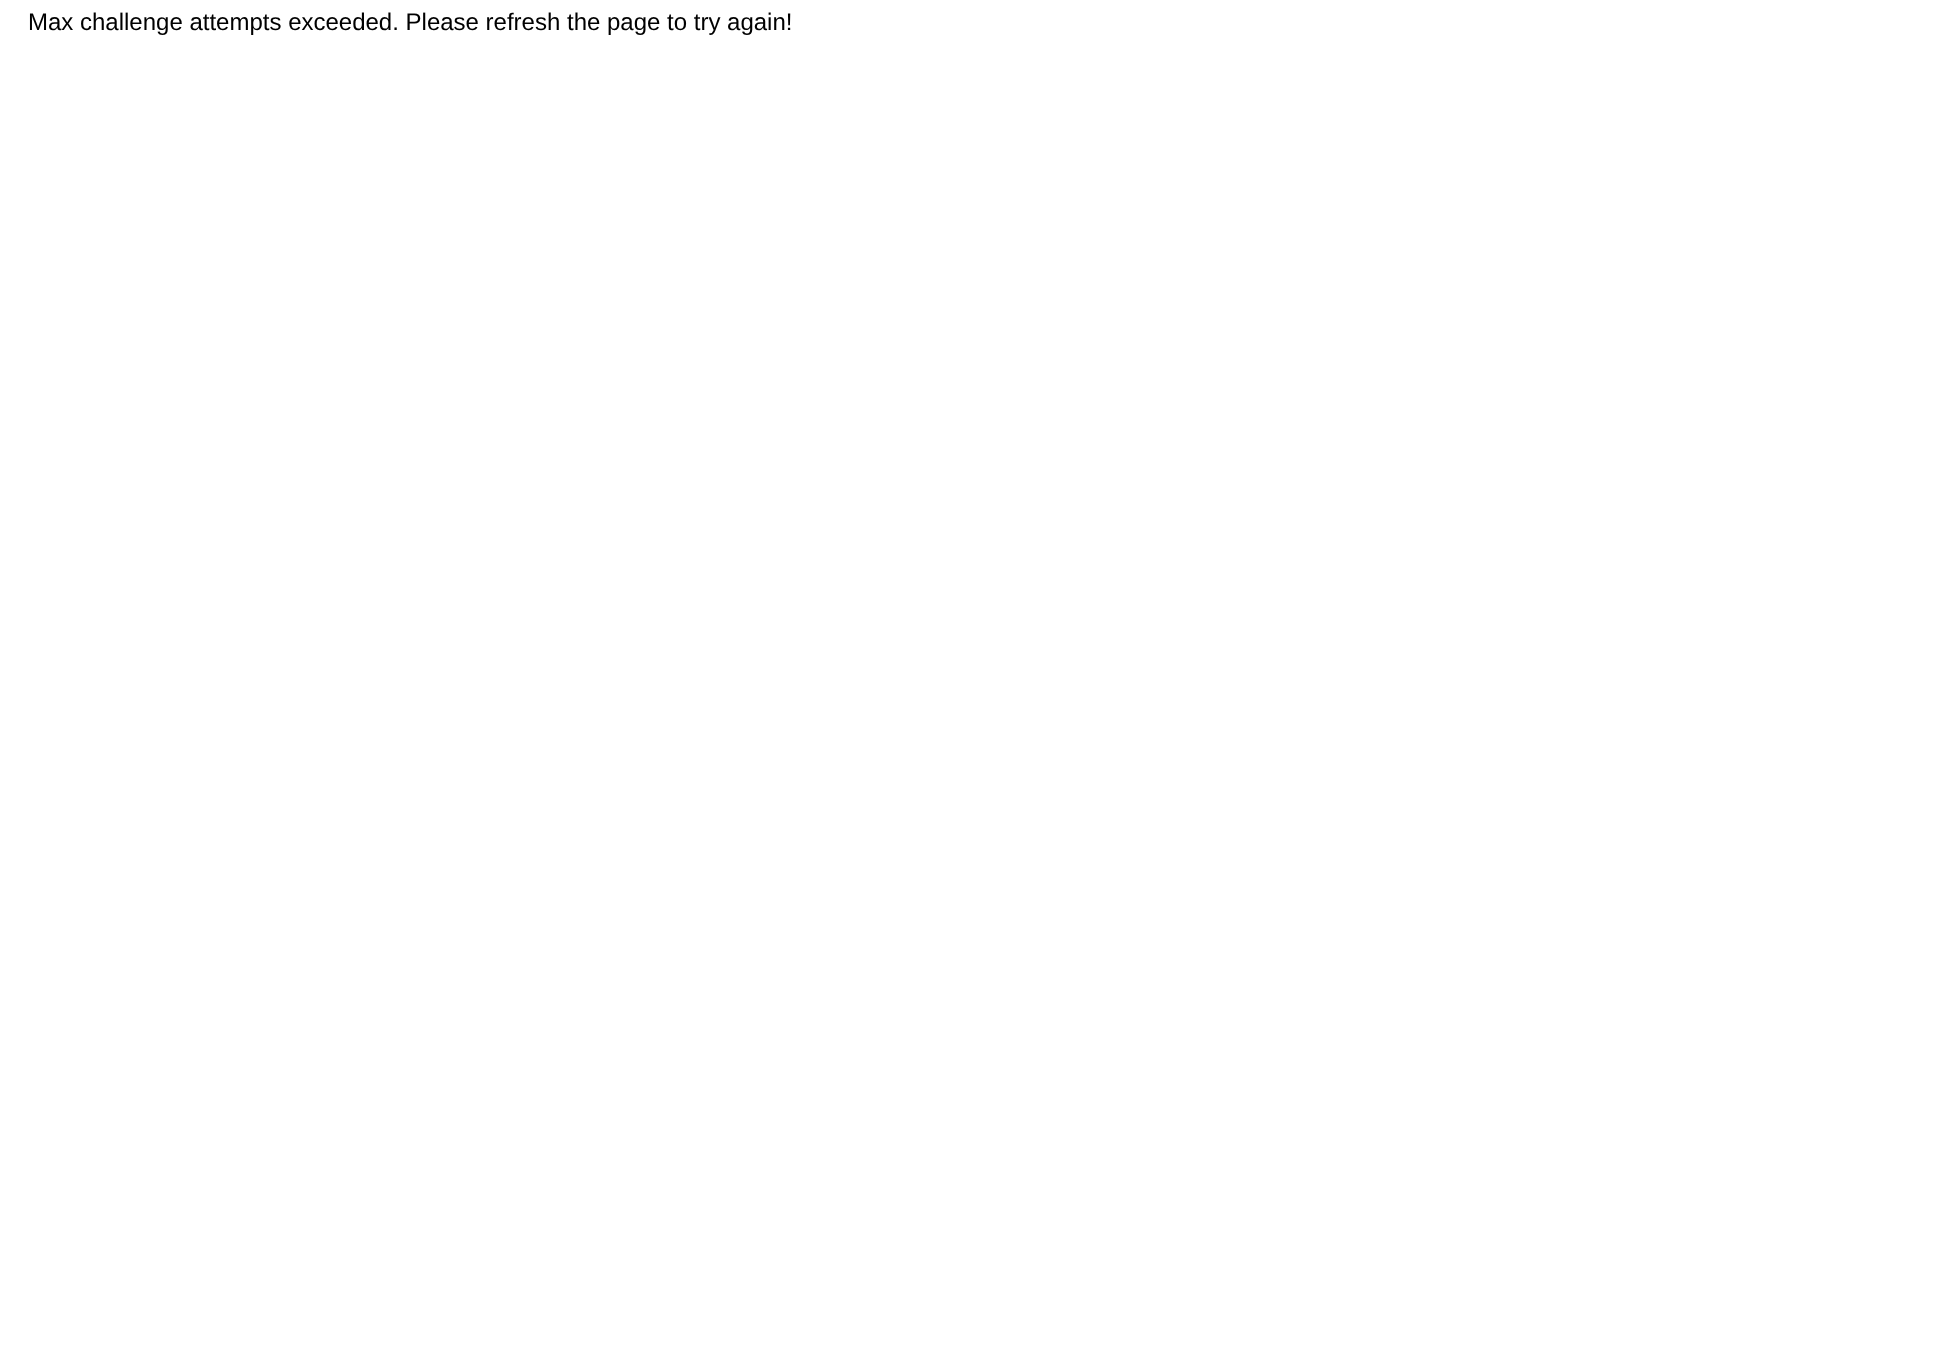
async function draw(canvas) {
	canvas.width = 1939;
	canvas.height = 1365;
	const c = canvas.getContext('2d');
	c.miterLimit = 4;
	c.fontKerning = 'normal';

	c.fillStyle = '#fff';
	c.fillRect(0, 0, 1939, 1365);
	c.font = '24px Liberation Sans';
	c.fillStyle = '#000';
	c.fillText('Max challenge attempts exceeded. Please refresh the page to try again!', 28, 30);
}

draw(document.querySelector('canvas'));
